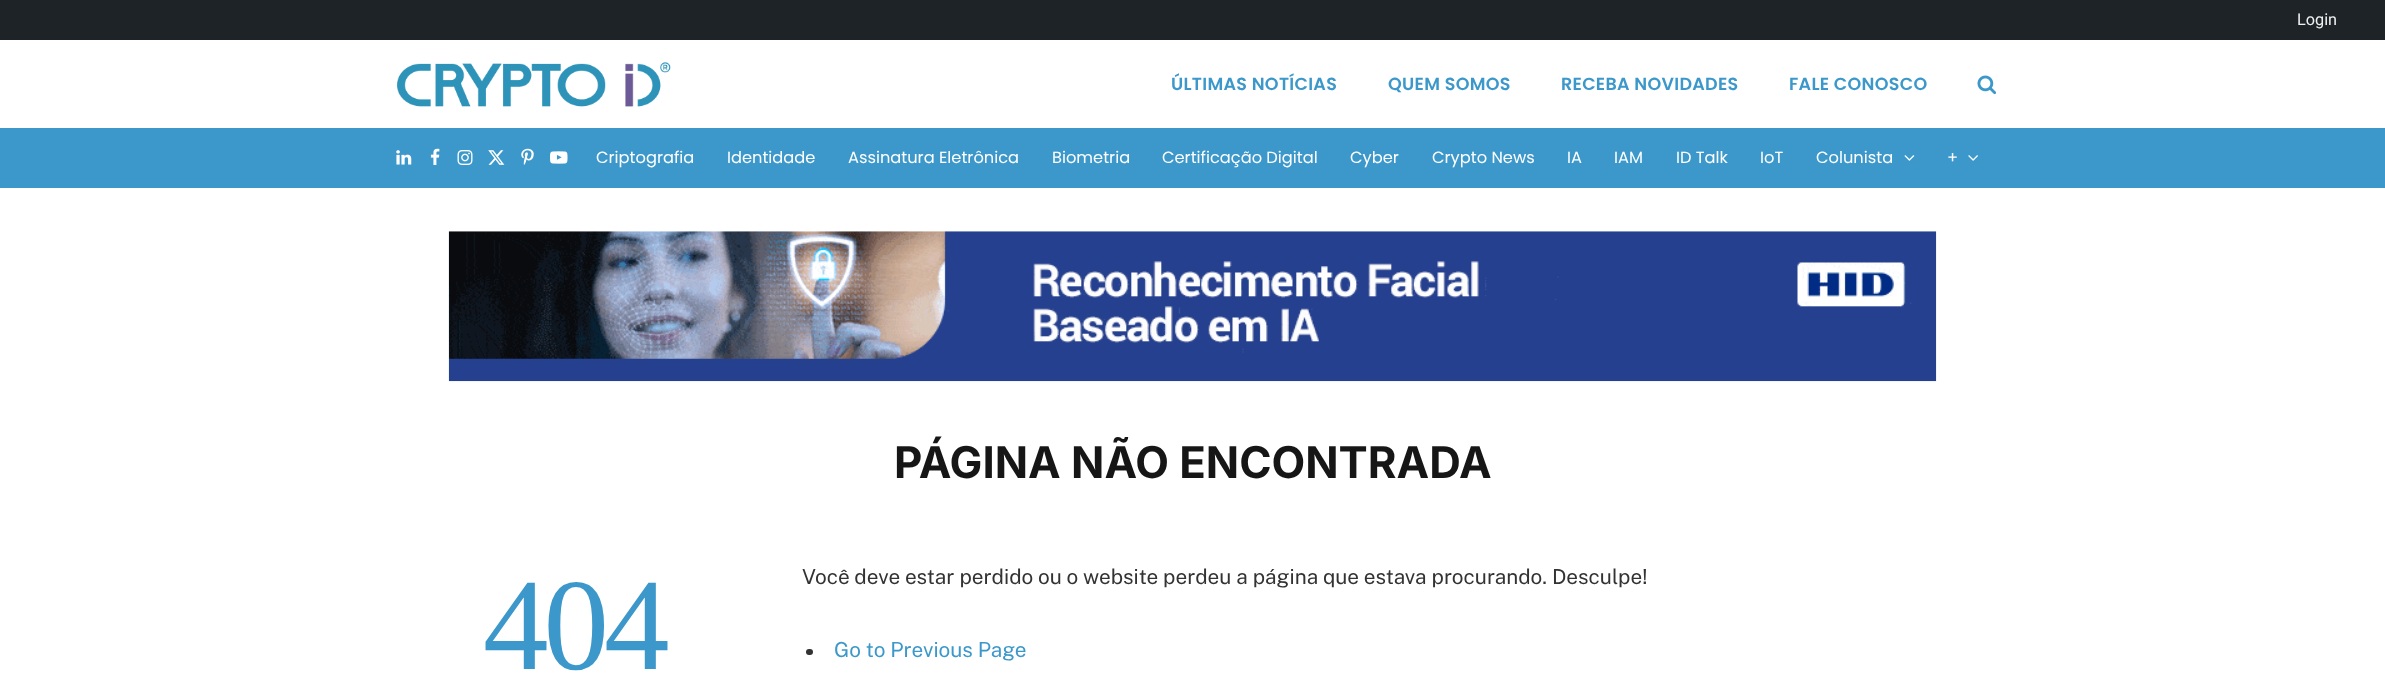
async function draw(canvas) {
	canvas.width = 2385;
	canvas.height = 677;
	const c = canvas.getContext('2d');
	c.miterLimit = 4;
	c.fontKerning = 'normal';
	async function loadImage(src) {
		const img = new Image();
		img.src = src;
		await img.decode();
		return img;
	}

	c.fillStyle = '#fff';
	c.fillRect(0, 0, 2385, 677);
	c.fillStyle = '#1d2327';
	c.fillRect(0, 0, 2385, 40);
	c.font = '16.25px Roboto';
	c.fillStyle = '#f0f0f1';
	c.fillText('Login', 2297, 25);
	c.drawImage(await loadImage('img1.png'), 397, 62, 274, 45);
	c.letterSpacing = '0.3px';
	c.font = '600 17.5px Poppins';
	c.fillStyle = '#3c98ca';
	for (const [text, x, y] of [
		['ÚLTIMAS NOTÍCIAS', 1171, 90],
		['QUEM SOMOS', 1388, 90],
		['RECEBA NOVIDADES', 1561, 90],
		['FALE CONOSCO', 1789, 90],
	]) {
		c.fillText(text, x, y);
	}
	c.drawImage(await loadImage('img2.png'), 1977, 75, 20, 20);
	c.fillRect(0, 128, 2385, 60);
	c.drawImage(await loadImage('img3.png'), 396, 150, 16, 15);
	c.drawImage(await loadImage('img4.png'), 430, 148, 10, 17);
	c.drawImage(await loadImage('img5.png'), 457, 150, 16, 15);
	c.drawImage(await loadImage('img6.png'), 488, 150, 17, 15);
	c.drawImage(await loadImage('img7.png'), 521, 148, 13, 17);
	c.drawImage(await loadImage('img8.png'), 550, 151, 18, 13);
	c.letterSpacing = '0px';
	c.font = '16.25px Poppins';
	c.fillStyle = '#fff';
	for (const [text, x, y] of [
		['Criptografia', 596, 163],
		['Identidade', 727, 163],
		['Assinatura Eletrônica', 848, 163],
		['Biometria', 1052, 163],
		['Certificação Digital', 1162, 163],
		['Cyber', 1350, 163],
		['Crypto News', 1432, 163],
		['IA', 1567, 163],
		['IAM', 1614, 163],
		['ID Talk', 1676, 163],
		['IoT', 1760, 163],
		['Colunista', 1816, 163],
	]) {
		c.fillText(text, x, y);
	}
	c.drawImage(await loadImage('img9.png'), 1904, 155, 11, 6);
	c.fillText('+', 1947, 163);
	c.drawImage(await loadImage('img10.png'), 1968, 155, 10, 6);
	c.drawImage(await loadImage('img11.png'), 448, 231, 1489, 151);
	c.font = 'bold 43.75px Inter';
	c.fillStyle = '#161616';
	c.fillText('PÁGINA NÃO ENCONTRADA', 894, 478);
	c.letterSpacing = '-5px';
	c.font = '131px Liberation Serif';
	c.fillStyle = '#3c98ca';
	c.fillText('404', 483, 669);
	c.letterSpacing = '0px';
	c.font = '20.75px Public Sans';
	c.fillStyle = '#333';
	c.fillText('Você deve estar perdido ou o website perdeu a página que estava procurando. Desculpe!', 802, 584);
	c.beginPath();
	c.roundRect(806, 649, 7, 6, 3);
	c.fill();
	c.fillStyle = '#3c98ca';
	c.fillText('Go to Previous Page', 834, 657);
}

draw(document.querySelector('canvas'));
